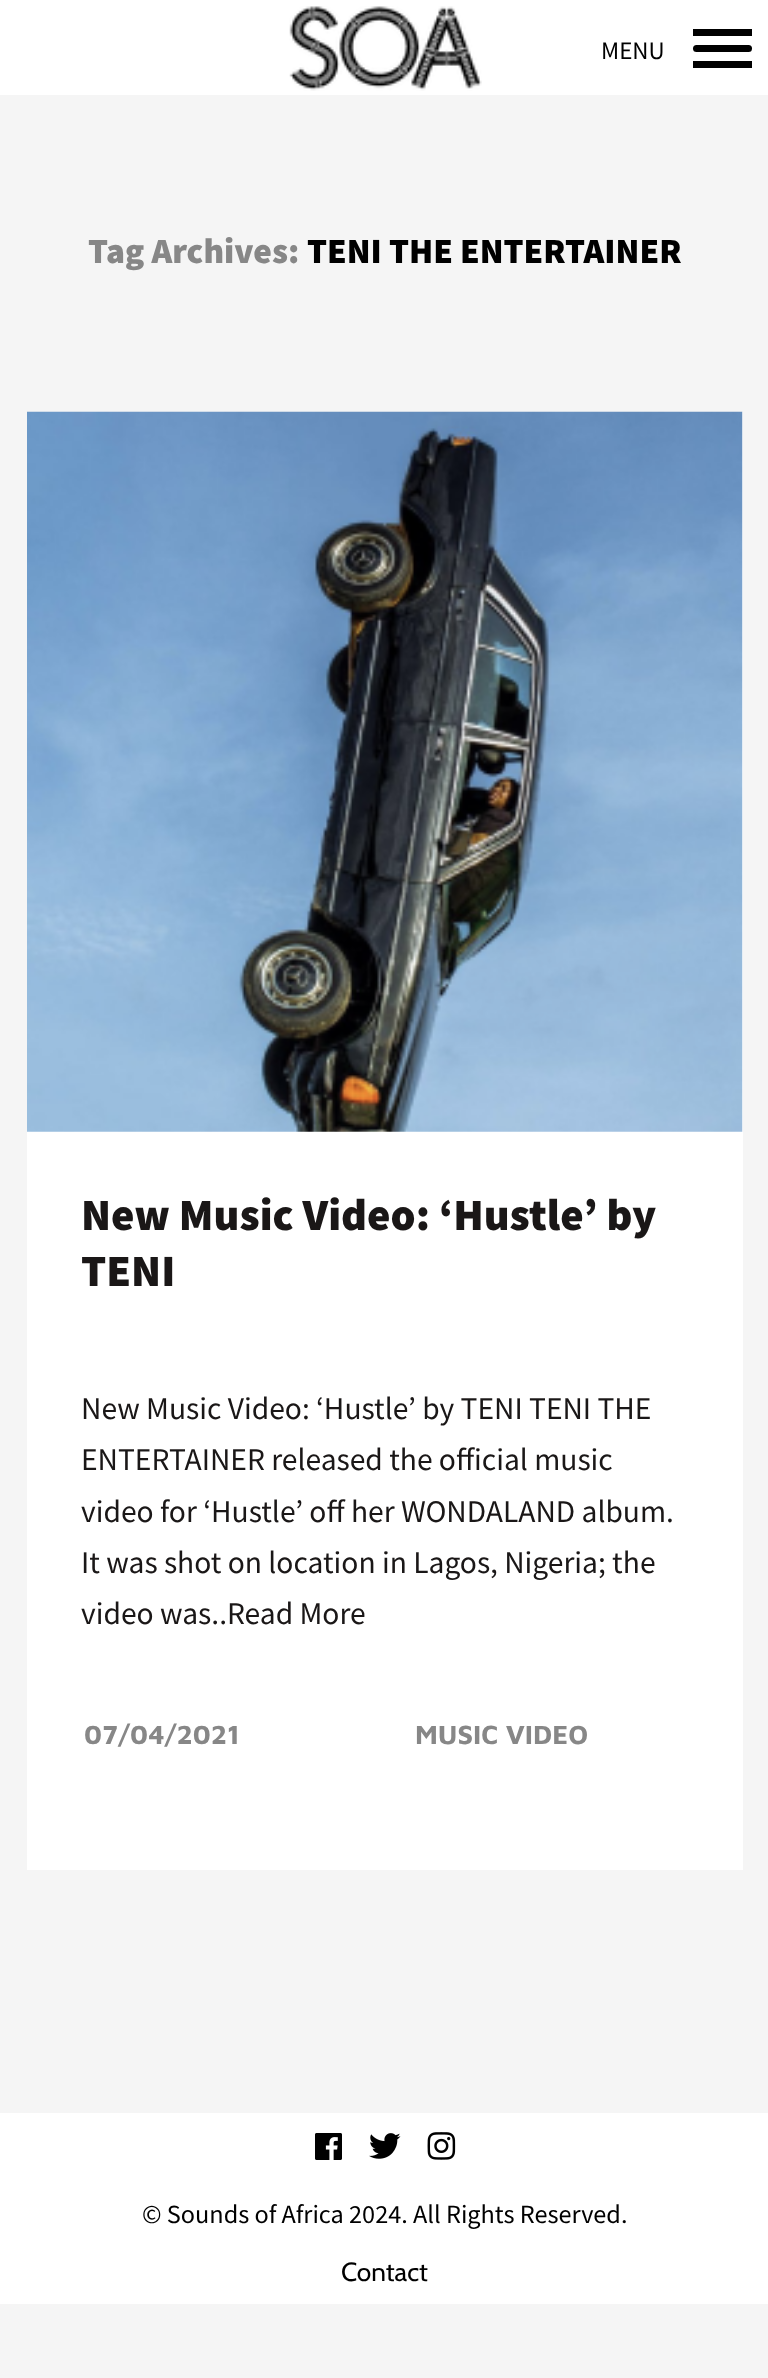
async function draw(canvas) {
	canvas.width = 768;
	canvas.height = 2378;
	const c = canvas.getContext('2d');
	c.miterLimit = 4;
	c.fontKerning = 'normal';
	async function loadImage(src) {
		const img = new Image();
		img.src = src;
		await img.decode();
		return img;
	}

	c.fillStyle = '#f5f5f5';
	c.fillRect(0, 0, 768, 2378);
	c.fillStyle = '#fff';
	c.fillRect(0, 0, 768, 95);
	c.drawImage(await loadImage('img1.png'), 289, 6, 193, 85);
	c.font = '25px Source Sans Pro';
	c.fillStyle = '#000';
	c.fillText('MENU', 601, 59);
	c.beginPath();
	c.roundRect(693, 45, 59, 7, 3.5);
	c.fill();
	c.fillRect(693, 29, 59, 7);
	c.fillRect(693, 61, 59, 7);
	c.font = '900 35.5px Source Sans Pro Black';
	c.fillStyle = '#878787';
	c.fillText('Tag Archives:', 88, 263);
	c.fillStyle = '#000';
	c.fillText('TENI THE ENTERTAINER', 307, 263);
	c.fillStyle = '#fff';
	c.fillRect(27, 412, 716, 1458);
	c.drawImage(await loadImage('img2.png'), 27, 411, 716, 721);
	c.font = '900 44.75px Source Sans Pro Black';
	c.fillStyle = '#1a1717';
	c.fillText('New Music Video: ‘Hustle’ by', 81, 1230);
	c.fillText('TENI', 81, 1286);
	c.font = '31.5px Source Sans Pro';
	for (const [text, x, y] of [
		['New Music Video: ‘Hustle’ by TENI TENI THE', 81, 1419],
		['ENTERTAINER released the official music', 81, 1470],
		['video for ‘Hustle’ off her WONDALAND album.', 81, 1522],
		['It was shot on location in Lagos, Nigeria; the', 81, 1573],
		['video was..Read More', 81, 1624],
	]) {
		c.fillText(text, x, y);
	}
	c.font = 'bold 27px Maven Pro';
	c.fillStyle = '#878787';
	c.fillText('07/04/2021', 84, 1744);
	c.fillText('MUSIC VIDEO', 415, 1744);
	c.fillStyle = '#fff';
	c.fillRect(0, 2113, 768, 191);
	c.drawImage(await loadImage('img3.png'), 315, 2133, 27, 27);
	c.drawImage(await loadImage('img4.png'), 369, 2133, 32, 26);
	c.drawImage(await loadImage('img5.png'), 427, 2132, 29, 28);
	c.font = '26.25px Source Sans Pro';
	c.fillStyle = '#000';
	c.fillText('© Sounds of Africa 2024. All Rights Reserved.', 142, 2223);
	c.font = '26.25px Cabin';
	c.fillText('Contact', 341, 2281);
}

draw(document.querySelector('canvas'));
